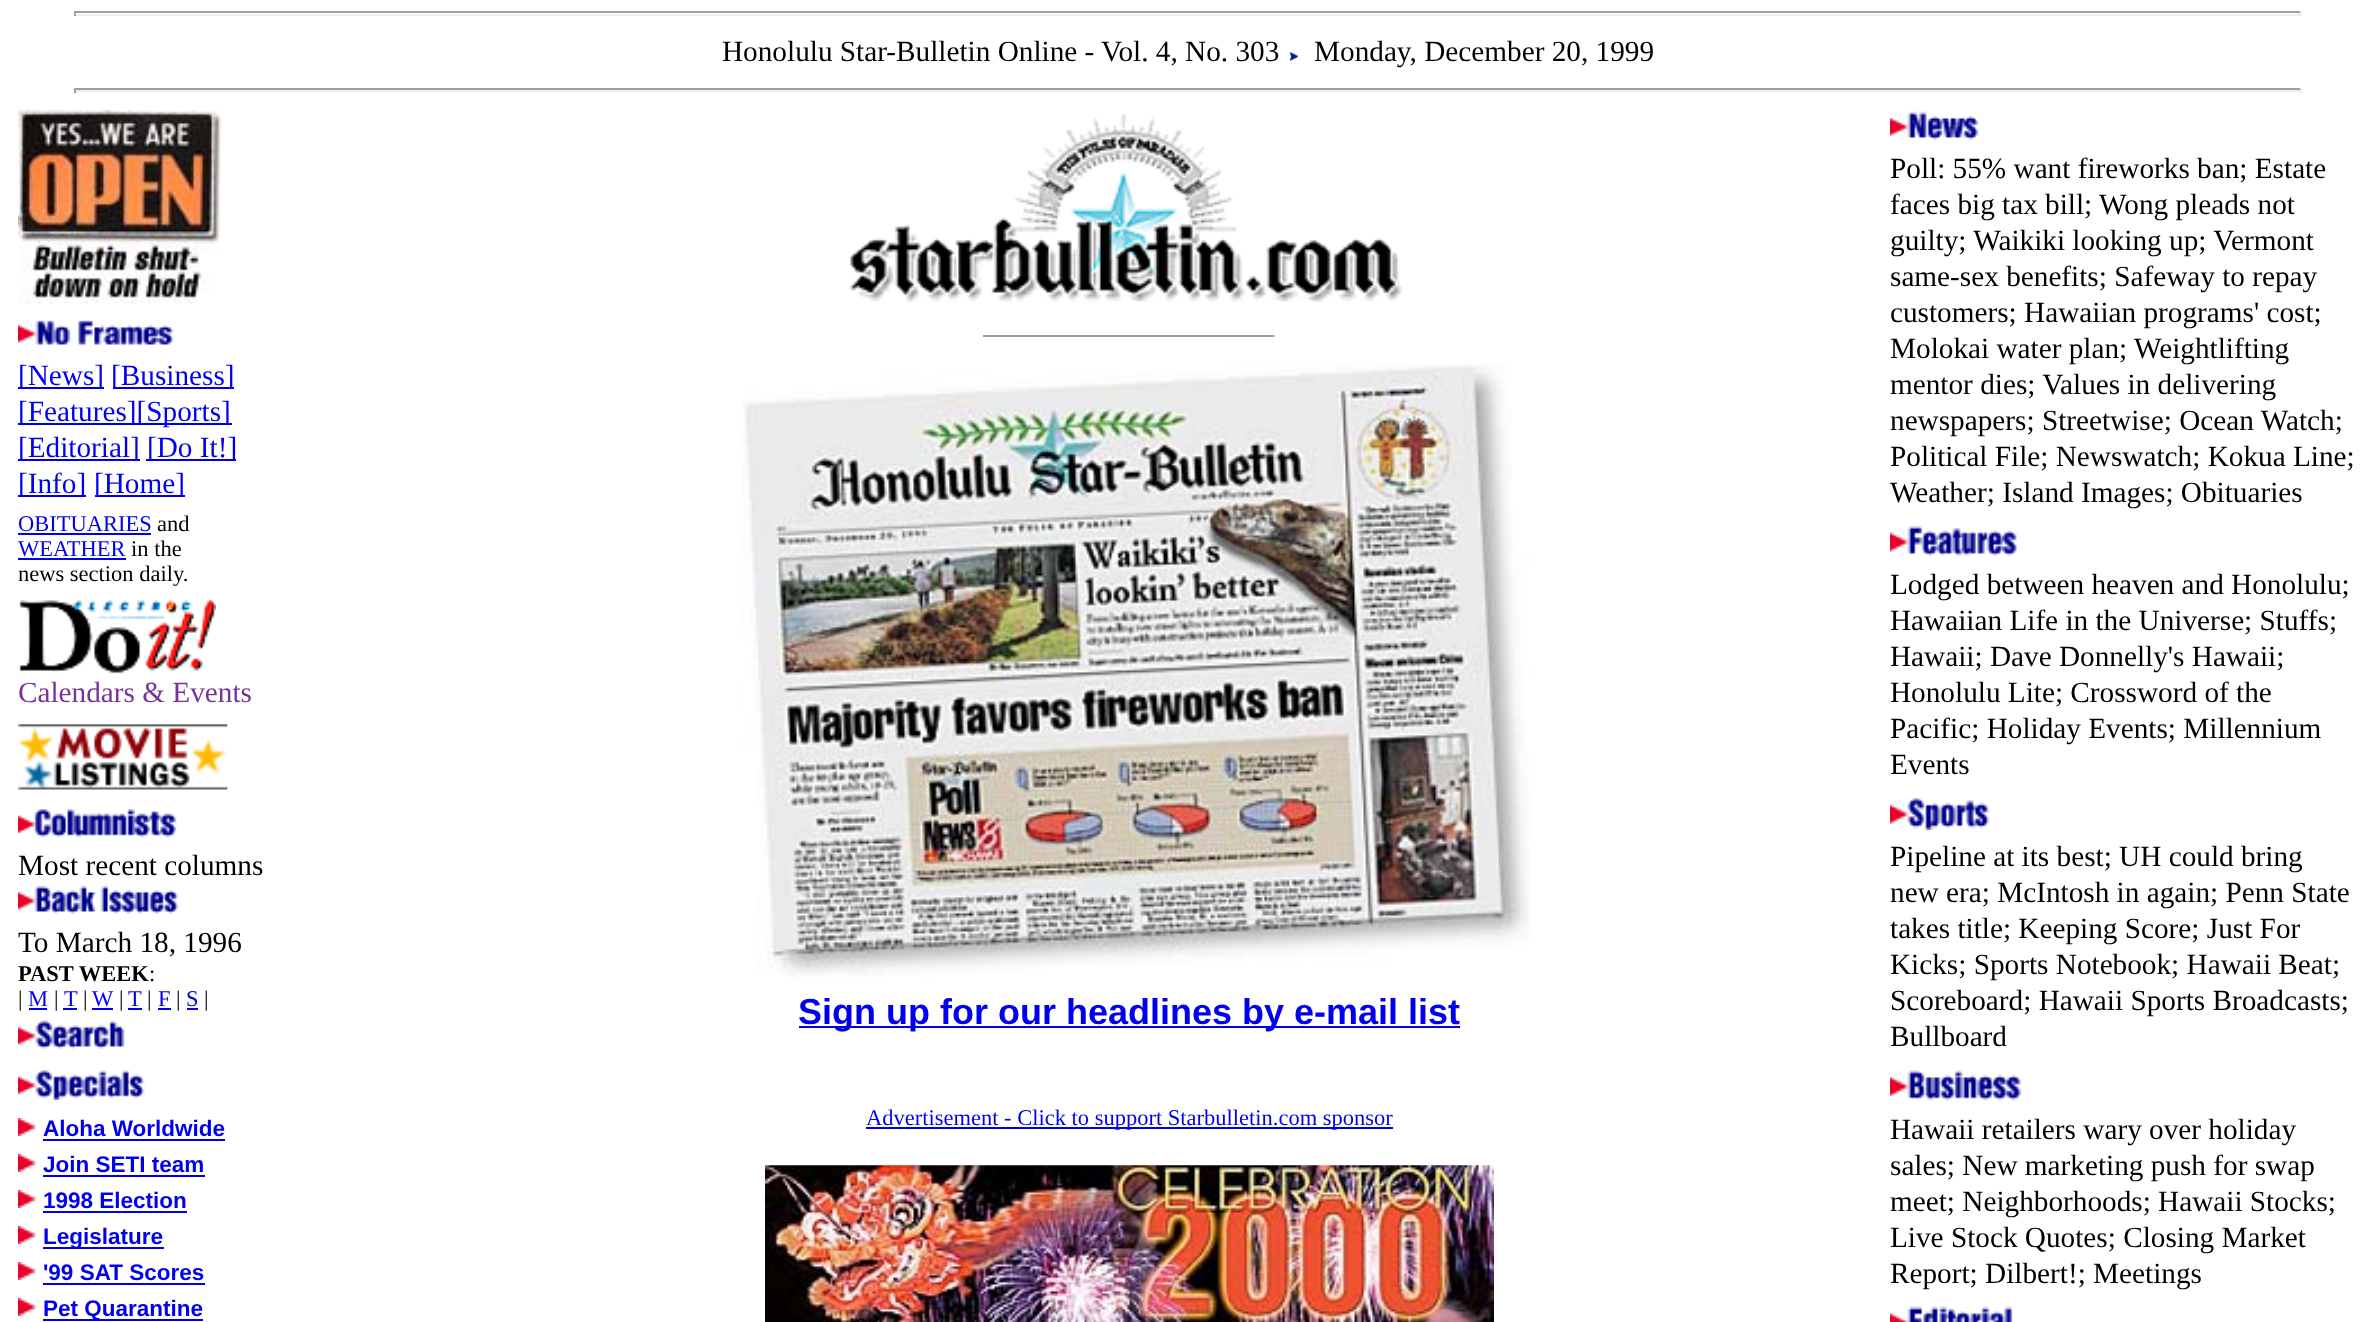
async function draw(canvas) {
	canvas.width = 2375;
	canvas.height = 1322;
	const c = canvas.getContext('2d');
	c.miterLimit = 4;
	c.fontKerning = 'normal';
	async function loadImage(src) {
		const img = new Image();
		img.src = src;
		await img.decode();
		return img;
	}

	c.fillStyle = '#fff';
	c.fillRect(0, 0, 2375, 1322);
	for (const [x, y, w, h, color] of [
		[74, 11, 2228, 2, '#9f9f9f'],
		[2300, 11, 2, 5, '#eee'],
		[74, 14, 2228, 2, '#eee'],
		[74, 11, 2, 5, '#9f9f9f'],
	]) {
		c.fillStyle = color;
		c.fillRect(x, y, w, h);
	}
	c.font = '29.25px Liberation Serif';
	c.fillStyle = '#000';
	c.fillText('Honolulu Star-Bulletin Online - Vol. 4, No. 303', 722, 61);
	c.drawImage(await loadImage('img1.png'), 1289, 51, 10, 10);
	c.fillText('Monday, December 20, 1999', 1314, 61);
	for (const [x, y, w, h, color] of [
		[74, 88, 2228, 2, '#9f9f9f'],
		[2300, 88, 2, 5, '#eee'],
		[74, 90, 2228, 2, '#eee'],
		[74, 88, 2, 5, '#9f9f9f'],
	]) {
		c.fillStyle = color;
		c.fillRect(x, y, w, h);
	}
	c.drawImage(await loadImage('img2.png'), 18, 110, 203, 194);
	c.drawImage(await loadImage('img3.png'), 18, 320, 156, 25);
	c.fillStyle = '#00e';
	c.fillRect(18, 387, 86, 2);
	c.fillText('[News]', 18, 385);
	c.fillRect(113, 387, 121, 2);
	c.fillText('[Business]', 111, 385);
	c.fillRect(18, 423, 214, 2);
	c.fillText('[Features][Sports]', 18, 421);
	c.fillRect(18, 459, 122, 2);
	c.fillText('[Editorial]', 18, 457);
	c.fillRect(146, 459, 90, 2);
	c.fillText('[Do It!]', 147, 457);
	c.fillRect(18, 495, 68, 2);
	c.fillText('[Info]', 18, 493);
	c.fillRect(95, 495, 90, 2);
	c.fillText('[Home]', 94, 493);
	c.font = '22.5px Liberation Serif';
	c.fillText('OBITUARIES', 18, 531);
	c.fillRect(18, 533, 133, 2);
	c.fillStyle = '#000';
	c.fillText('and', 157, 531);
	c.fillStyle = '#00e';
	c.fillText('WEATHER', 18, 556);
	c.fillRect(18, 558, 108, 2);
	c.fillStyle = '#000';
	c.fillText('in the', 131, 556);
	c.fillText('news section daily.', 18, 581);
	c.drawImage(await loadImage('img4.png'), 19, 600, 197, 74);
	c.font = '29.25px Liberation Serif';
	c.fillStyle = '#739';
	c.fillText('Calendars & Events', 18, 702);
	c.drawImage(await loadImage('img5.png'), 18, 724, 210, 66);
	c.drawImage(await loadImage('img6.png'), 18, 809, 159, 29);
	c.fillStyle = '#000';
	c.fillText('Most recent columns', 18, 875);
	c.drawImage(await loadImage('img7.png'), 18, 885, 161, 29);
	c.fillText('To March 18, 1996', 18, 952);
	c.font = 'bold 22.5px Liberation Serif';
	c.fillText('PAST WEEK', 18, 981);
	c.font = '22.5px Liberation Serif';
	c.fillText(':', 149, 981);
	c.fillText('|', 18, 1006);
	c.fillStyle = '#00e';
	c.fillText('M', 28, 1006);
	c.fillRect(29, 1008, 18, 2);
	c.fillStyle = '#000';
	c.fillText('|', 54, 1006);
	c.fillStyle = '#00e';
	c.fillText('T', 64, 1006);
	c.fillRect(63, 1008, 14, 2);
	c.fillStyle = '#000';
	c.fillText('|', 83, 1006);
	c.fillStyle = '#00e';
	c.fillText('W', 92, 1006);
	c.fillRect(92, 1008, 21, 2);
	c.fillStyle = '#000';
	c.fillText('|', 119, 1006);
	c.fillStyle = '#00e';
	c.fillText('T', 128, 1006);
	c.fillRect(128, 1008, 14, 2);
	c.fillStyle = '#000';
	c.fillText('|', 147, 1006);
	c.fillStyle = '#00e';
	c.fillText('F', 158, 1006);
	c.fillRect(158, 1008, 13, 2);
	c.fillStyle = '#000';
	c.fillText('|', 176, 1006);
	c.fillStyle = '#00e';
	c.fillText('S', 186, 1006);
	c.fillRect(187, 1008, 11, 2);
	c.fillStyle = '#000';
	c.fillText('|', 204, 1006);
	c.drawImage(await loadImage('img8.png'), 18, 1020, 107, 29);
	c.drawImage(await loadImage('img9.png'), 18, 1070, 127, 30);
	c.drawImage(await loadImage('img10.png'), 18, 1118, 18, 18);
	c.font = 'bold 22.5px Liberation Sans';
	c.fillStyle = '#00e';
	c.fillText('Aloha Worldwide', 43, 1136);
	c.fillRect(43, 1139, 182, 2);
	c.drawImage(await loadImage('img10.png'), 18, 1154, 18, 18);
	c.fillText('Join SETI team', 43, 1172);
	c.fillRect(43, 1175, 162, 2);
	c.drawImage(await loadImage('img10.png'), 18, 1190, 18, 18);
	c.fillText('1998 Election', 43, 1208);
	c.fillRect(43, 1211, 144, 2);
	c.drawImage(await loadImage('img10.png'), 18, 1226, 18, 18);
	c.fillRect(43, 1247, 121, 2);
	c.fillText('Legislature', 43, 1244);
	c.drawImage(await loadImage('img11.png'), 18, 1262, 18, 18);
	c.fillText('\'99 SAT Scores', 43, 1280);
	c.fillRect(43, 1283, 162, 2);
	c.drawImage(await loadImage('img10.png'), 18, 1298, 18, 18);
	c.fillRect(43, 1319, 160, 2);
	c.fillText('Pet Quarantine', 43, 1316);
	c.drawImage(await loadImage('img12.png'), 850, 114, 553, 188);
	c.fillStyle = '#9f9f9f';
	c.fillRect(983, 335, 293, 2);
	c.fillStyle = '#eee';
	c.fillRect(1274, 335, 2, 2);
	c.drawImage(await loadImage('img13.png'), 742, 364, 788, 613);
	c.fillStyle = '#00e';
	c.fillRect(799, 1026, 661, 2);
	c.font = 'bold 36px Liberation Sans';
	c.fillText('Sign up for our headlines by e-mail list', 798, 1024);
	c.fillRect(866, 1127, 527, 2);
	c.font = '22.5px Liberation Serif';
	c.fillText('Advertisement - Click to support Starbulletin.com sponsor', 866, 1125);
	c.drawImage(await loadImage('img14.png'), 765, 1165, 729, 157);
	c.drawImage(await loadImage('img15.png'), 1890, 111, 89, 29);
	c.font = '29.25px Liberation Serif';
	c.fillStyle = '#000';
	for (const [text, x, y] of [
		['Poll: 55% want fireworks ban; Estate', 1890, 178],
		['faces big tax bill; Wong pleads not', 1890, 214],
		['guilty; Waikiki looking up; Vermont', 1890, 250],
		['same-sex benefits; Safeway to repay', 1890, 286],
		['customers; Hawaiian programs\' cost;', 1890, 322],
		['Molokai water plan; Weightlifting', 1890, 358],
		['mentor dies; Values in delivering', 1890, 394],
		['newspapers; Streetwise; Ocean Watch;', 1890, 430],
		['Political File; Newswatch; Kokua Line;', 1890, 466],
		['Weather; Island Images; Obituaries', 1890, 502],
	]) {
		c.fillText(text, x, y);
	}
	c.drawImage(await loadImage('img16.png'), 1890, 525, 127, 31);
	for (const [text, x, y] of [
		['Lodged between heaven and Honolulu;', 1890, 594],
		['Hawaiian Life in the Universe; Stuffs;', 1890, 630],
		['Hawaii; Dave Donnelly\'s Hawaii;', 1890, 666],
		['Honolulu Lite; Crossword of the', 1890, 702],
		['Pacific; Holiday Events; Millennium', 1890, 738],
		['Events', 1890, 774],
	]) {
		c.fillText(text, x, y);
	}
	c.drawImage(await loadImage('img17.png'), 1890, 798, 100, 32);
	for (const [text, x, y] of [
		['Pipeline at its best; UH could bring', 1890, 866],
		['new era; McIntosh in again; Penn State', 1890, 902],
		['takes title; Keeping Score; Just For', 1890, 938],
		['Kicks; Sports Notebook; Hawaii Beat;', 1890, 974],
		['Scoreboard; Hawaii Sports Broadcasts;', 1890, 1010],
		['Bullboard', 1890, 1046],
	]) {
		c.fillText(text, x, y);
	}
	c.drawImage(await loadImage('img18.png'), 1890, 1070, 132, 31);
	for (const [text, x, y] of [
		['Hawaii retailers wary over holiday', 1890, 1139],
		['sales; New marketing push for swap', 1890, 1175],
		['meet; Neighborhoods; Hawaii Stocks;', 1890, 1211],
		['Live Stock Quotes; Closing Market', 1890, 1247],
		['Report; Dilbert!; Meetings', 1890, 1283],
	]) {
		c.fillText(text, x, y);
	}
	c.drawImage(await loadImage('img19.png'), 1890, 1306, 123, 16);
}

draw(document.querySelector('canvas'));
